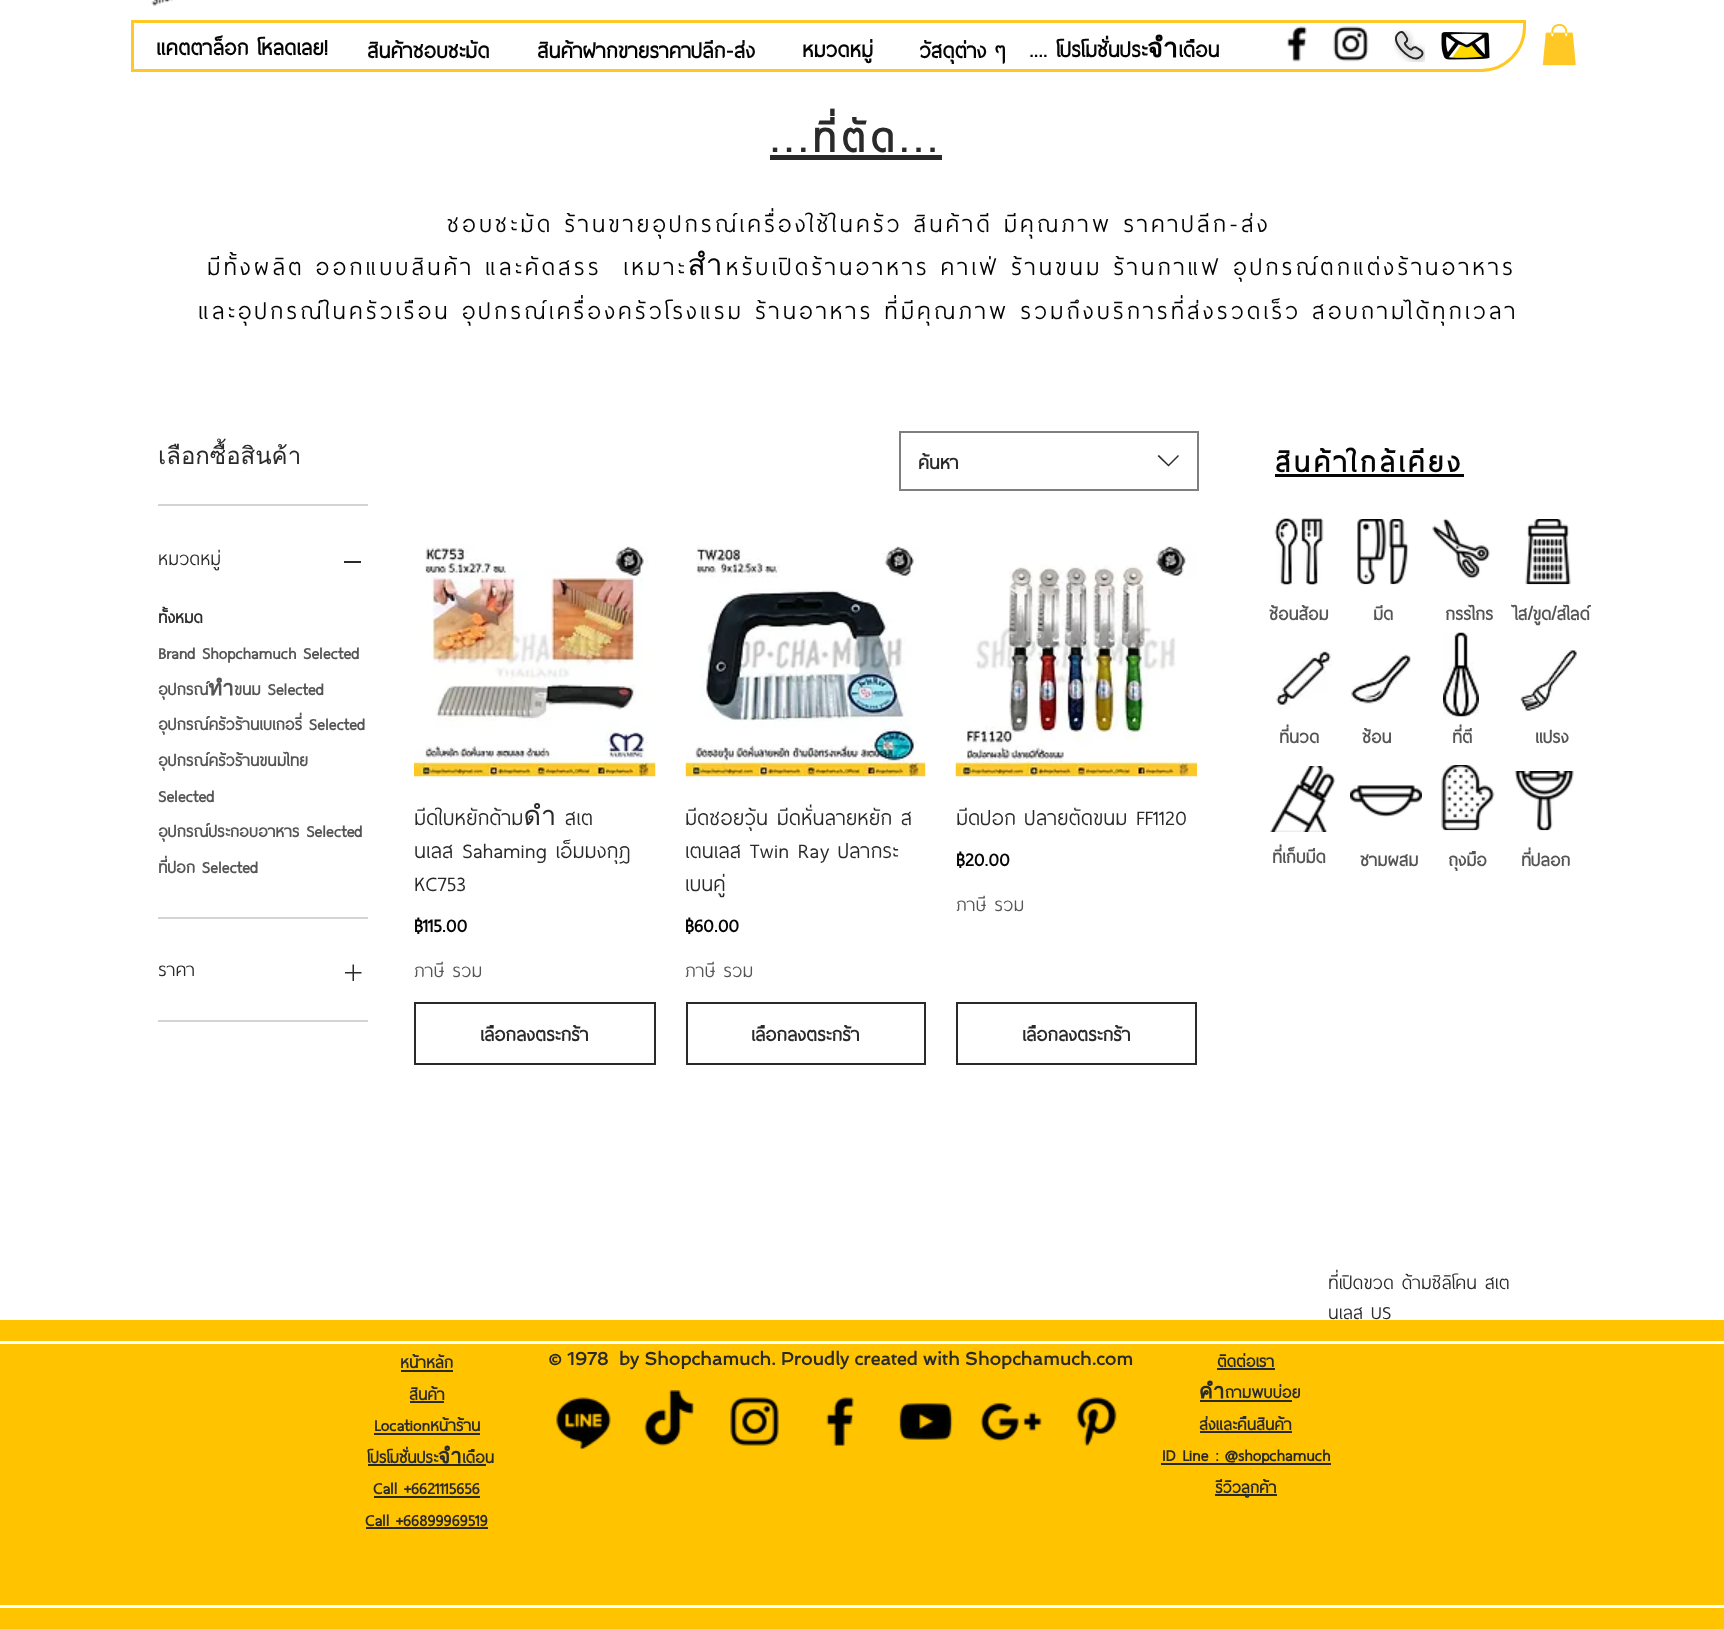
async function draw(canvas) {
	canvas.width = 1724;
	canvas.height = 1629;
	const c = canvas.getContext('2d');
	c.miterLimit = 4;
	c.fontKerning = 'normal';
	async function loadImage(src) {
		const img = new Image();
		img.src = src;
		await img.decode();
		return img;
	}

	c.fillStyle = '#fff';
	c.fillRect(0, 0, 1724, 1629);
	c.drawImage(await loadImage('img1.png'), 151, 0, 22, 6);
	c.beginPath();
	c.roundRect(132.5, 21.5, 1392, 49, [0, 0, 43.5, 0]);
	c.strokeStyle = '#ffc824';
	c.lineWidth = 3;
	c.stroke();
	c.drawImage(await loadImage('img2.png'), 1542, 24, 34, 42);
	c.font = 'bold 27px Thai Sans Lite';
	c.fillStyle = '#040504';
	c.fillText('แคตตาล็อก โหลดเลย!', 156, 55);
	c.drawImage(await loadImage('img3.png'), 1287, 26, 20, 36);
	c.drawImage(await loadImage('img4.png'), 1333, 26, 36, 36);
	c.drawImage(await loadImage('img5.png'), 1394, 30, 31, 32);
	c.drawImage(await loadImage('img6.png'), 1441, 32, 49, 28);
	for (const [text, x, y] of [
		['สินค้าชอบชะมัด', 367, 58],
		['สินค้าฝากขายราคาปลีก-ส่ง', 537, 58],
		['หมวดหมู่', 802, 57],
		['วัสดุต่าง ๆ', 919, 58],
		['.... โปรโมชั่นประจำเดือน', 1029, 57],
	]) {
		c.fillText(text, x, y);
	}
	c.letterSpacing = '5.25px';
	c.font = 'bold 52.5px Thai Sans Lite';
	c.fillStyle = '#2a2a2a';
	c.fillText('...ที่ตัด...', 770, 152);
	c.fillRect(770, 155, 172, 5);
	c.letterSpacing = '3px';
	c.wordSpacing = '-1.75px';
	c.font = '30px Thai Sans Lite';
	c.fillStyle = '#040504';
	for (const [text, x, y] of [
		['ชอบชะมัด ร้านขายอุปกรณ์เครื่องใช้ในครัว สินค้าดี มีคุณภาพ ราคาปลีก-ส่ง', 447, 232],
		['มีทั้งผลิต ออกแบบสินค้า และคัดสรร  เหมาะสำหรับเปิดร้านอาหาร คาเฟ่ ร้านขนม ร้านกาแฟ อุปกรณ์ตกแต่งร้านอาหาร', 207, 275],
		['และอุปกรณ์ในครัวเรือน อุปกรณ์เครื่องครัวโรงแรม ร้านอาหาร ที่มีคุณภาพ รวมถึงบริการที่ส่งรวดเร็ว สอบถามได้ทุกเวลา', 198, 319],
	]) {
		c.fillText(text, x, y);
	}
	c.fillStyle = '#d4d4d4';
	c.fillRect(158, 504, 210, 2);
	c.letterSpacing = '0px';
	c.wordSpacing = '0px';
	c.font = '24px Loma';
	c.fillStyle = '#2a2a2a';
	c.fillText('เลือกซื้อสินค้า', 158, 464);
	c.fillStyle = '#d4d4d4';
	c.fillRect(158, 917, 210, 2);
	c.font = '24px Thai Sans Lite';
	c.fillStyle = '#2a2a2a';
	c.fillText('หมวดหมู่', 158, 565);
	c.fillRect(344, 561, 17, 2);
	c.font = 'bold 21px Thai Sans Lite';
	c.fillText('ทั้งหมด', 158, 623);
	c.fillStyle = '#555';
	for (const [text, x, y] of [
		['Brand Shopchamuch Selected', 158, 659],
		['อุปกรณ์ทำขนม Selected', 158, 695],
		['อุปกรณ์ครัวร้านเบเกอรี่ Selected', 158, 730],
		['อุปกรณ์ครัวร้านขนมไทย', 158, 766],
		['Selected', 158, 802],
		['อุปกรณ์ประกอบอาหาร Selected', 158, 837],
		['ที่ปอก Selected', 158, 873],
	]) {
		c.fillText(text, x, y);
	}
	c.fillStyle = '#d4d4d4';
	c.fillRect(158, 1020, 210, 2);
	c.font = '24px Thai Sans Lite';
	c.fillStyle = '#2a2a2a';
	c.fillText('ราคา', 158, 976);
	c.drawImage(await loadImage('img7.png'), 345, 964, 17, 17);
	c.strokeStyle = '#7f7f7f';
	c.lineWidth = 2;
	c.strokeRect(900, 432, 298, 58);
	c.save();
	c.beginPath();
	c.rect(918, 447, 227, 27);
	c.clip();
	c.font = 'bold 24px Thai Sans Lite';
	c.fillText('ค้นหา', 918, 469);
	c.restore();
	c.beginPath();
	c.moveTo(1178, 455);
	c.lineTo(1179, 456);
	c.lineTo(1168.5, 466.5);
	c.lineTo(1157.5, 456);
	c.lineTo(1159, 455);
	c.lineTo(1168.5, 464.5);
	c.closePath();
	c.fill('evenodd');
	c.drawImage(await loadImage('img8.png'), 414, 546, 242, 231);
	c.font = '27px Thai Sans Lite';
	for (const [text, x, y] of [
		['มีดใบหยักด้ามดำ สเต', 414, 825],
		['นเลส Sahaming เอ็มมงกุฎ', 414, 858],
		['KC753', 414, 891],
	]) {
		c.fillText(text, x, y);
	}
	c.font = 'bold 24px Thai Sans Lite';
	c.fillStyle = '#040504';
	c.fillText('฿115.00', 414, 932);
	c.font = '24px Thai Sans Lite';
	c.fillStyle = '#555';
	c.fillText('ภาษี รวม', 414, 977);
	c.strokeStyle = '#2a2a2a';
	c.strokeRect(415, 1003, 240, 61);
	c.font = 'bold 24px Thai Sans Lite';
	c.fillStyle = '#2a2a2a';
	c.fillText('เลือกลงตระกร้า', 480, 1041);
	c.drawImage(await loadImage('img9.png'), 685, 546, 241, 231);
	c.font = '27px Thai Sans Lite';
	for (const [text, x, y] of [
		['มีดซอยวุ้น มีดหั่นลายหยัก ส', 685, 825],
		['เตนเลส Twin Ray ปลากระ', 685, 858],
		['เบนคู่', 685, 891],
	]) {
		c.fillText(text, x, y);
	}
	c.font = 'bold 24px Thai Sans Lite';
	c.fillStyle = '#040504';
	c.fillText('฿60.00', 685, 932);
	c.font = '24px Thai Sans Lite';
	c.fillStyle = '#555';
	c.fillText('ภาษี รวม', 685, 977);
	c.strokeRect(687, 1003, 238, 61);
	c.font = 'bold 24px Thai Sans Lite';
	c.fillStyle = '#2a2a2a';
	c.fillText('เลือกลงตระกร้า', 751, 1041);
	c.drawImage(await loadImage('img10.png'), 955, 546, 242, 231);
	c.font = '27px Thai Sans Lite';
	c.fillText('มีดปอก ปลายตัดขนม FF1120', 956, 825);
	c.font = 'bold 24px Thai Sans Lite';
	c.fillStyle = '#040504';
	c.fillText('฿20.00', 956, 866);
	c.font = '24px Thai Sans Lite';
	c.fillStyle = '#555';
	c.fillText('ภาษี รวม', 956, 911);
	c.strokeRect(957, 1003, 239, 61);
	c.font = 'bold 24px Thai Sans Lite';
	c.fillStyle = '#2a2a2a';
	c.fillText('เลือกลงตระกร้า', 1022, 1041);
	c.letterSpacing = '3.6px';
	c.font = 'bold 36px Thai Sans Lite';
	c.fillStyle = '#040504';
	c.fillText('สินค้าใกล้เคียง', 1275, 472);
	c.fillRect(1275, 474, 189, 3);
	c.drawImage(await loadImage('img11.png'), 1274, 518, 50, 67);
	c.drawImage(await loadImage('img12.png'), 1357, 519, 52, 66);
	c.drawImage(await loadImage('img13.png'), 1432, 518, 58, 61);
	c.drawImage(await loadImage('img14.png'), 1525, 519, 46, 66);
	c.letterSpacing = '0px';
	c.font = 'bold 22.5px Thai Sans Lite';
	c.fillStyle = '#555';
	for (const [text, x, y] of [
		['ช้อนส้อม', 1269, 620],
		['มีด', 1373, 620],
		['กรรไกร', 1445, 620],
		['ไส/ขูด/สไลด์', 1514, 620],
	]) {
		c.fillText(text, x, y);
	}
	c.drawImage(await loadImage('img15.png'), 1276, 649, 56, 60);
	c.drawImage(await loadImage('img16.png'), 1350, 654, 61, 50);
	c.drawImage(await loadImage('img17.png'), 1443, 632, 36, 85);
	c.drawImage(await loadImage('img18.png'), 1520, 650, 57, 61);
	for (const [text, x, y] of [
		['ที่นวด', 1279, 743],
		['ช้อน', 1362, 743],
		['ที่ตี', 1452, 743],
		['แปรง', 1535, 743],
	]) {
		c.fillText(text, x, y);
	}
	c.drawImage(await loadImage('img19.png'), 1270, 766, 66, 66);
	c.drawImage(await loadImage('img20.png'), 1350, 785, 72, 32);
	c.drawImage(await loadImage('img21.png'), 1441, 765, 54, 66);
	c.drawImage(await loadImage('img22.png'), 1514, 771, 60, 60);
	for (const [text, x, y] of [
		['ที่เก็บมีด', 1272, 863],
		['ชามผสม', 1360, 866],
		['ถุงมือ', 1448, 866],
		['ที่ปลอก', 1521, 866],
	]) {
		c.fillText(text, x, y);
	}
	c.save();
	c.beginPath();
	c.rect(1326, 1035, 210, 321);
	c.clip();
	c.font = '24px Thai Sans Lite';
	c.fillStyle = '#2a2a2a';
	c.fillText('ที่เปิดขวด ด้ามซิลิโคน สเต', 1328, 1289);
	c.restore();
	c.font = '24px Thai Sans Lite';
	c.fillStyle = '#2a2a2a';
	c.fillText('นเลส US', 1328, 1319);
	for (const [x, y, w, h, color] of [
		[0, 1320, 1724, 309, '#ffc300'],
		[0, 1341, 1724, 3, '#fff'],
		[0, 1605, 1724, 3, '#fff'],
	]) {
		c.fillStyle = color;
		c.fillRect(x, y, w, h);
	}
	c.font = 'bold 21px Thai Sans Lite';
	c.fillStyle = '#2a2a2a';
	c.fillText('หน้าหลัก', 400, 1368);
	c.fillRect(401, 1370, 52, 2);
	c.fillText('สินค้า', 409, 1400);
	c.fillRect(410, 1401, 34, 2);
	c.fillText('Locationหน้าร้าน', 374, 1431);
	c.fillRect(374, 1433, 106, 2);
	c.fillText('โปรโมชั่นประจำเดือน', 367, 1463);
	c.fillRect(368, 1464, 118, 2);
	c.fillText('Call +6621115656', 373, 1494);
	c.fillRect(374, 1496, 106, 2);
	c.fillText('Call +66899969519', 365, 1526);
	c.fillRect(366, 1527, 122, 2);
	c.font = 'bold 18px Spinnaker';
	c.fillText('© 1978  by Shopchamuch. Proudly created with Shopchamuch.com', 548, 1365);
	c.font = 'bold 21px Thai Sans Lite';
	c.fillText('ติดต่อเรา', 1217, 1367);
	c.fillRect(1217, 1368, 58, 2);
	c.fillText('คำถามพบบ่อย', 1199, 1398);
	c.fillRect(1200, 1400, 92, 2);
	c.fillText('ส่งและคืนสินค้า', 1199, 1430);
	c.fillRect(1200, 1431, 92, 2);
	c.fillRect(1161, 1463, 170, 2);
	c.fillText('ID Line : @shopchamuch', 1162, 1461);
	c.fillRect(1215, 1494, 62, 2);
	c.fillText('รีวิวลูกค้า', 1215, 1493);
	c.drawImage(await loadImage('img23.png'), 556, 1397, 55, 53);
	c.drawImage(await loadImage('img24.png'), 644, 1390, 50, 56);
	c.drawImage(await loadImage('img25.png'), 730, 1397, 49, 49);
	c.drawImage(await loadImage('img26.png'), 826, 1397, 28, 49);
	c.drawImage(await loadImage('img27.png'), 899, 1403, 54, 37);
	c.drawImage(await loadImage('img28.png'), 980, 1402, 62, 40);
	c.drawImage(await loadImage('img29.png'), 1076, 1397, 41, 49);
}

draw(document.querySelector('canvas'));
